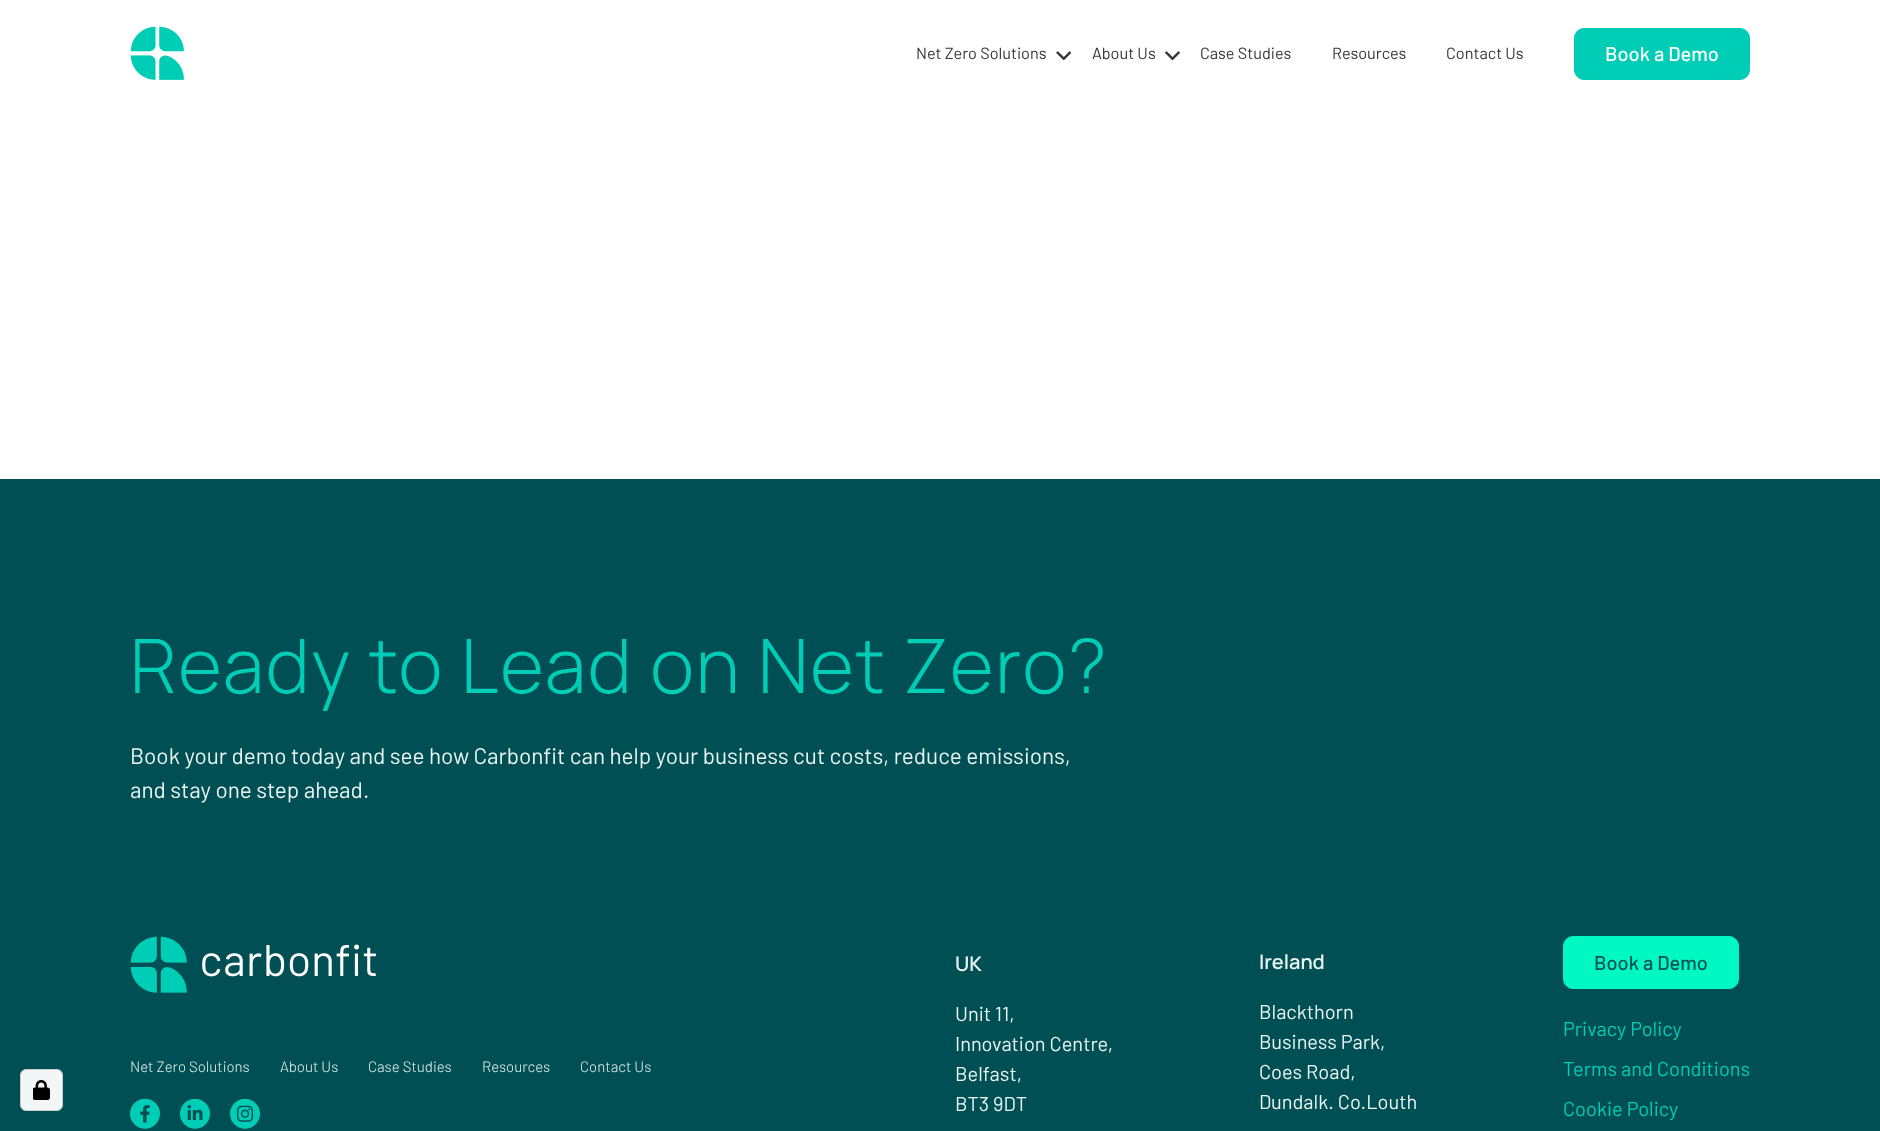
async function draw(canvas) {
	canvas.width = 1880;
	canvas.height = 1131;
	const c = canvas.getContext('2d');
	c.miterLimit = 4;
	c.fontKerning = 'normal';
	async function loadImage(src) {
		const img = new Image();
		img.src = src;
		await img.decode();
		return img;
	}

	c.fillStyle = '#fff';
	c.fillRect(0, 0, 1880, 1131);
	c.fillStyle = '#004f55';
	c.fillRect(0, 479, 1880, 652);
	c.fillStyle = '#f2f6f7';
	c.beginPath();
	c.roundRect(20.5, 1069.5, 42, 41, 5.5);
	c.fill();
	c.strokeStyle = '#ccc';
	c.stroke();
	c.drawImage(await loadImage('img1.png'), 33, 1080, 17, 20);
	c.drawImage(await loadImage('img2.png'), 130, 26, 54, 54);
	c.font = '16.25px Barlow';
	c.fillStyle = '#373737';
	c.fillText('Net Zero Solutions', 916, 59);
	c.drawImage(await loadImage('img3.png'), 1056, 51, 15, 10);
	c.fillText('About Us', 1092, 59);
	c.drawImage(await loadImage('img4.png'), 1165, 51, 15, 10);
	for (const [text, x, y] of [
		['Case Studies', 1200, 59],
		['Resources', 1332, 59],
		['Contact Us', 1446, 59],
	]) {
		c.fillText(text, x, y);
	}
	c.fillStyle = '#00cdb5';
	c.beginPath();
	c.roundRect(1574.5, 28.5, 175, 51, 9.5);
	c.fill();
	c.strokeStyle = '#00cdb5';
	c.stroke();
	c.font = '500 20px Barlow';
	c.fillStyle = '#fff';
	c.fillText('Book a Demo', 1605, 61);
	c.letterSpacing = '1.8px';
	c.font = '300 75px Manrope';
	c.fillStyle = '#00cdb5';
	c.fillText('Ready to Lead on Net Zero?', 130, 693);
	c.letterSpacing = '0px';
	c.font = '22.5px Barlow';
	c.fillStyle = '#e9f6f2';
	c.fillText('Book your demo today and see how Carbonfit can help your business cut costs, reduce emissions,', 130, 764);
	c.fillText('and stay one step ahead.', 130, 798);
	c.drawImage(await loadImage('img5.png'), 130, 936, 246, 57);
	c.font = '300 15px Barlow';
	for (const [text, x, y] of [
		['Net Zero Solutions', 130, 1072],
		['About Us', 280, 1072],
		['Case Studies', 368, 1072],
		['Resources', 482, 1072],
		['Contact Us', 580, 1072],
	]) {
		c.fillText(text, x, y);
	}
	c.drawImage(await loadImage('img6.png'), 130, 1099, 30, 30);
	c.drawImage(await loadImage('img7.png'), 180, 1099, 30, 30);
	c.drawImage(await loadImage('img8.png'), 230, 1099, 30, 30);
	c.font = '600 20px Manrope';
	c.fillText('UK', 955, 971);
	c.font = '20px Barlow';
	for (const [text, x, y] of [
		['Unit 11,', 955, 1021],
		['Innovation Centre,', 955, 1051],
		['Belfast,', 955, 1081],
		['BT3 9DT', 955, 1111],
	]) {
		c.fillText(text, x, y);
	}
	c.font = '600 20px Manrope';
	c.fillText('Ireland', 1259, 969);
	c.font = '20px Barlow';
	for (const [text, x, y] of [
		['Blackthorn', 1259, 1019],
		['Business Park,', 1259, 1049],
		['Coes Road,', 1259, 1079],
		['Dundalk. Co.Louth', 1259, 1109],
	]) {
		c.fillText(text, x, y);
	}
	c.fillStyle = '#00f8c3';
	c.beginPath();
	c.roundRect(1563.5, 936.5, 175, 52, 9.5);
	c.fill();
	c.strokeStyle = '#00f8c3';
	c.stroke();
	c.font = '500 20px Barlow';
	c.fillStyle = '#004f55';
	c.fillText('Book a Demo', 1594, 970);
	c.font = '20px Barlow';
	c.fillStyle = '#00cdb5';
	for (const [text, x, y] of [
		['Privacy Policy', 1563, 1036],
		['Terms and Conditions', 1563, 1076],
		['Cookie Policy', 1563, 1116],
	]) {
		c.fillText(text, x, y);
	}
}

draw(document.querySelector('canvas'));
